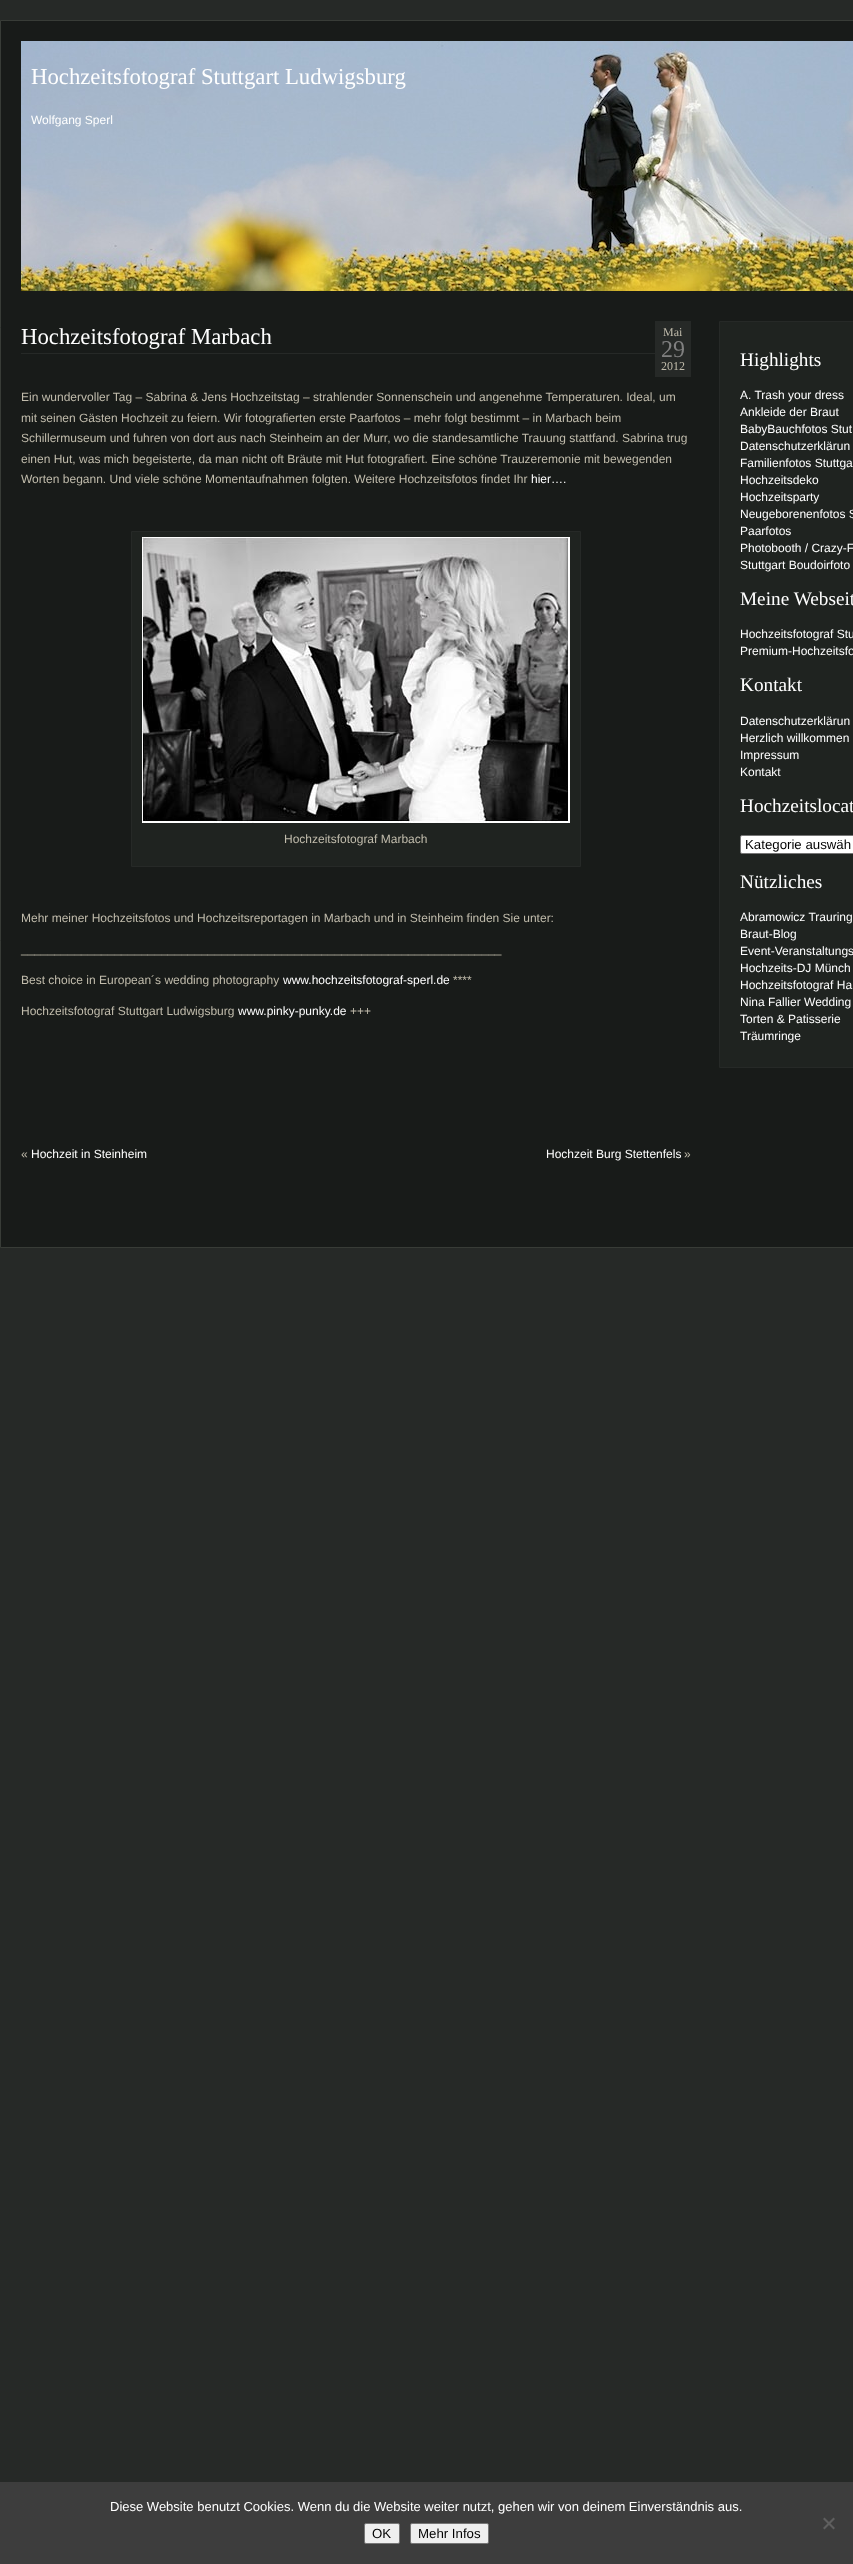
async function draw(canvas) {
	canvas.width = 853;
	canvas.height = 2564;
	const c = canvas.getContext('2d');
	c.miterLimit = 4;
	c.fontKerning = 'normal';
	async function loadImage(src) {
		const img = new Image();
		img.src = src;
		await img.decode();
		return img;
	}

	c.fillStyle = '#262927';
	c.fillRect(0, 0, 853, 2564);
	c.fillStyle = '#181b19';
	c.beginPath();
	c.rect(0.5, 20.5, 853, 1227);
	c.fill();
	c.strokeStyle = '#383c37';
	c.stroke();
	c.drawImage(await loadImage('img1.png'), 21, 41, 832, 250);
	c.font = '22.75px Liberation Serif';
	c.fillStyle = '#fff';
	c.fillText('Hochzeitsfotograf Stuttgart Ludwigsburg', 31, 84);
	c.font = '12px Liberation Sans';
	c.fillText('Wolfgang Sperl', 31, 124);
	c.fillStyle = '#262927';
	c.fillRect(21, 353, 634, 1);
	c.font = '22.75px Liberation Serif';
	c.fillStyle = '#fff';
	c.fillText('Hochzeitsfotograf Marbach', 21, 344);
	c.fillStyle = '#262927';
	c.fillRect(655, 321, 36, 56);
	c.font = '12px Liberation Serif';
	c.fillStyle = '#c1bcac';
	c.fillText('Mai', 663, 336);
	c.font = '24px Liberation Serif';
	c.fillStyle = '#808080';
	c.fillText('29', 661, 357);
	c.font = '12px Liberation Serif';
	c.fillStyle = '#c1bcac';
	c.fillText('2012', 661, 370);
	c.font = '12px Liberation Sans';
	for (const [text, x, y] of [
		['Ein wundervoller Tag – Sabrina & Jens Hochzeitstag – strahlender Sonnenschein und angenehme Temperaturen. Ideal, um', 21, 401],
		['mit seinen Gästen Hochzeit zu feiern. Wir fotografierten erste Paarfotos – mehr folgt bestimmt – in Marbach beim', 21, 422],
		['Schillermuseum und fuhren von dort aus nach Steinheim an der Murr, wo die standesamtliche Trauung stattfand. Sabrina trug', 21, 442],
		['einen Hut, was mich begeisterte, da man nicht oft Bräute mit Hut fotografiert. Eine schöne Trauzeremonie mit bewegenden', 21, 463],
		['Worten begann. Und viele schöne Momentaufnahmen folgten. Weitere Hochzeitsfotos findet Ihr', 21, 483],
	]) {
		c.fillText(text, x, y);
	}
	c.fillStyle = '#fff';
	c.fillText('hier….', 531, 483);
	c.fillStyle = '#1f2320';
	c.beginPath();
	c.rect(131.5, 531.5, 449, 335);
	c.fill();
	c.strokeStyle = '#262927';
	c.stroke();
	c.drawImage(await loadImage('img2.png'), 142, 537, 428, 286);
	c.fillStyle = '#c1bcac';
	for (const [text, x, y] of [
		['Hochzeitsfotograf Marbach', 284, 843],
		['Mehr meiner Hochzeitsfotos und Hochzeitsreportagen in Marbach und in Steinheim finden Sie unter:', 21, 922],
		['________________________________________________________________________', 21, 953],
		['Best choice in European´s wedding photography', 21, 984],
	]) {
		c.fillText(text, x, y);
	}
	c.fillStyle = '#fff';
	c.fillText('www.hochzeitsfotograf-sperl.de', 283, 984);
	c.fillStyle = '#c1bcac';
	c.fillText('****', 453, 984);
	c.fillText('Hochzeitsfotograf Stuttgart Ludwigsburg', 21, 1015);
	c.fillStyle = '#fff';
	c.fillText('www.pinky-punky.de', 238, 1015);
	c.fillStyle = '#c1bcac';
	c.fillText('+++', 350, 1015);
	c.fillText('«', 21, 1158);
	c.fillStyle = '#fff';
	c.fillText('Hochzeit in Steinheim', 31, 1158);
	c.fillText('Hochzeit Burg Stettenfels', 546, 1158);
	c.fillStyle = '#c1bcac';
	c.fillText('»', 684, 1158);
	c.fillStyle = '#1f2320';
	c.beginPath();
	c.rect(719.5, 321.5, 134, 746);
	c.fill();
	c.stroke();
	c.font = '19.25px Liberation Serif';
	c.fillStyle = '#fff';
	c.fillText('Highlights', 740, 366);
	c.font = '12px Liberation Sans';
	for (const [text, x, y] of [
		['A. Trash your dress', 740, 399],
		['Ankleide der Braut', 740, 416],
		['BabyBauchfotos Stut', 740, 433],
		['Datenschutzerklärun', 740, 450],
		['Familienfotos Stuttga', 740, 467],
		['Hochzeitsdeko', 740, 484],
		['Hochzeitsparty', 740, 501],
		['Neugeborenenfotos S', 740, 518],
		['Paarfotos', 740, 535],
		['Photobooth / Crazy-F', 740, 552],
		['Stuttgart Boudoirfoto', 740, 569],
	]) {
		c.fillText(text, x, y);
	}
	c.font = '19.25px Liberation Serif';
	c.fillText('Meine Webseit', 740, 605);
	c.font = '12px Liberation Sans';
	c.fillText('Hochzeitsfotograf Stu', 740, 638);
	c.fillText('Premium-Hochzeitsfo', 740, 655);
	c.font = '19.25px Liberation Serif';
	c.fillText('Kontakt', 740, 691);
	c.font = '12px Liberation Sans';
	for (const [text, x, y] of [
		['Datenschutzerklärun', 740, 725],
		['Herzlich willkommen', 740, 742],
		['Impressum', 740, 759],
		['Kontakt', 740, 776],
	]) {
		c.fillText(text, x, y);
	}
	c.font = '19.25px Liberation Serif';
	c.fillText('Hochzeitslocat', 740, 812);
	c.beginPath();
	c.roundRect(740.5, 835.5, 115, 18, 1.5);
	c.fill();
	c.strokeStyle = '#767676';
	c.stroke();
	c.font = '13.25px Liberation Sans';
	c.fillStyle = '#000';
	c.fillText('Kategorie auswäh', 745, 849);
	c.font = '19.25px Liberation Serif';
	c.fillStyle = '#fff';
	c.fillText('Nützliches', 740, 888);
	c.font = '12px Liberation Sans';
	for (const [text, x, y] of [
		['Abramowicz Trauring', 740, 921],
		['Braut-Blog', 740, 938],
		['Event-Veranstaltungs', 740, 955],
		['Hochzeits-DJ Münch', 740, 972],
		['Hochzeitsfotograf Ha', 740, 989],
		['Nina Fallier Wedding', 740, 1006],
		['Torten & Patisserie', 740, 1023],
		['Träumringe', 740, 1040],
	]) {
		c.fillText(text, x, y);
	}
	c.fillStyle = '#3d3d3d';
	c.fillRect(0, 2482, 853, 82);
	c.font = '13px Liberation Sans';
	c.fillStyle = '#fff';
	c.fillText('Diese Website benutzt Cookies. Wenn du die Website weiter nutzt, gehen wir von deinem Einverständnis aus.', 110, 2511);
	c.fillStyle = '#5f5f5f';
	c.beginPath();
	c.moveTo(833.5, 2517.5);
	c.lineTo(835, 2519);
	c.lineTo(824.5, 2529.5);
	c.lineTo(823, 2528);
	c.closePath();
	c.fill();
	c.beginPath();
	c.moveTo(823, 2519);
	c.lineTo(824.5, 2517.5);
	c.lineTo(835, 2528);
	c.lineTo(833.5, 2529.5);
	c.closePath();
	c.fill();
	c.fillStyle = '#efefef';
	c.beginPath();
	c.roundRect(364.5, 2523.5, 35, 20, 1.5);
	c.fill();
	c.stroke();
	c.font = '13.25px Liberation Sans';
	c.fillStyle = '#000';
	c.fillText('OK', 372, 2538);
	c.fillStyle = '#efefef';
	c.beginPath();
	c.roundRect(410.5, 2523.5, 78, 20, 1.5);
	c.fill();
	c.stroke();
	c.fillStyle = '#000';
	c.fillText('Mehr Infos', 418, 2538);
}

draw(document.querySelector('canvas'));
